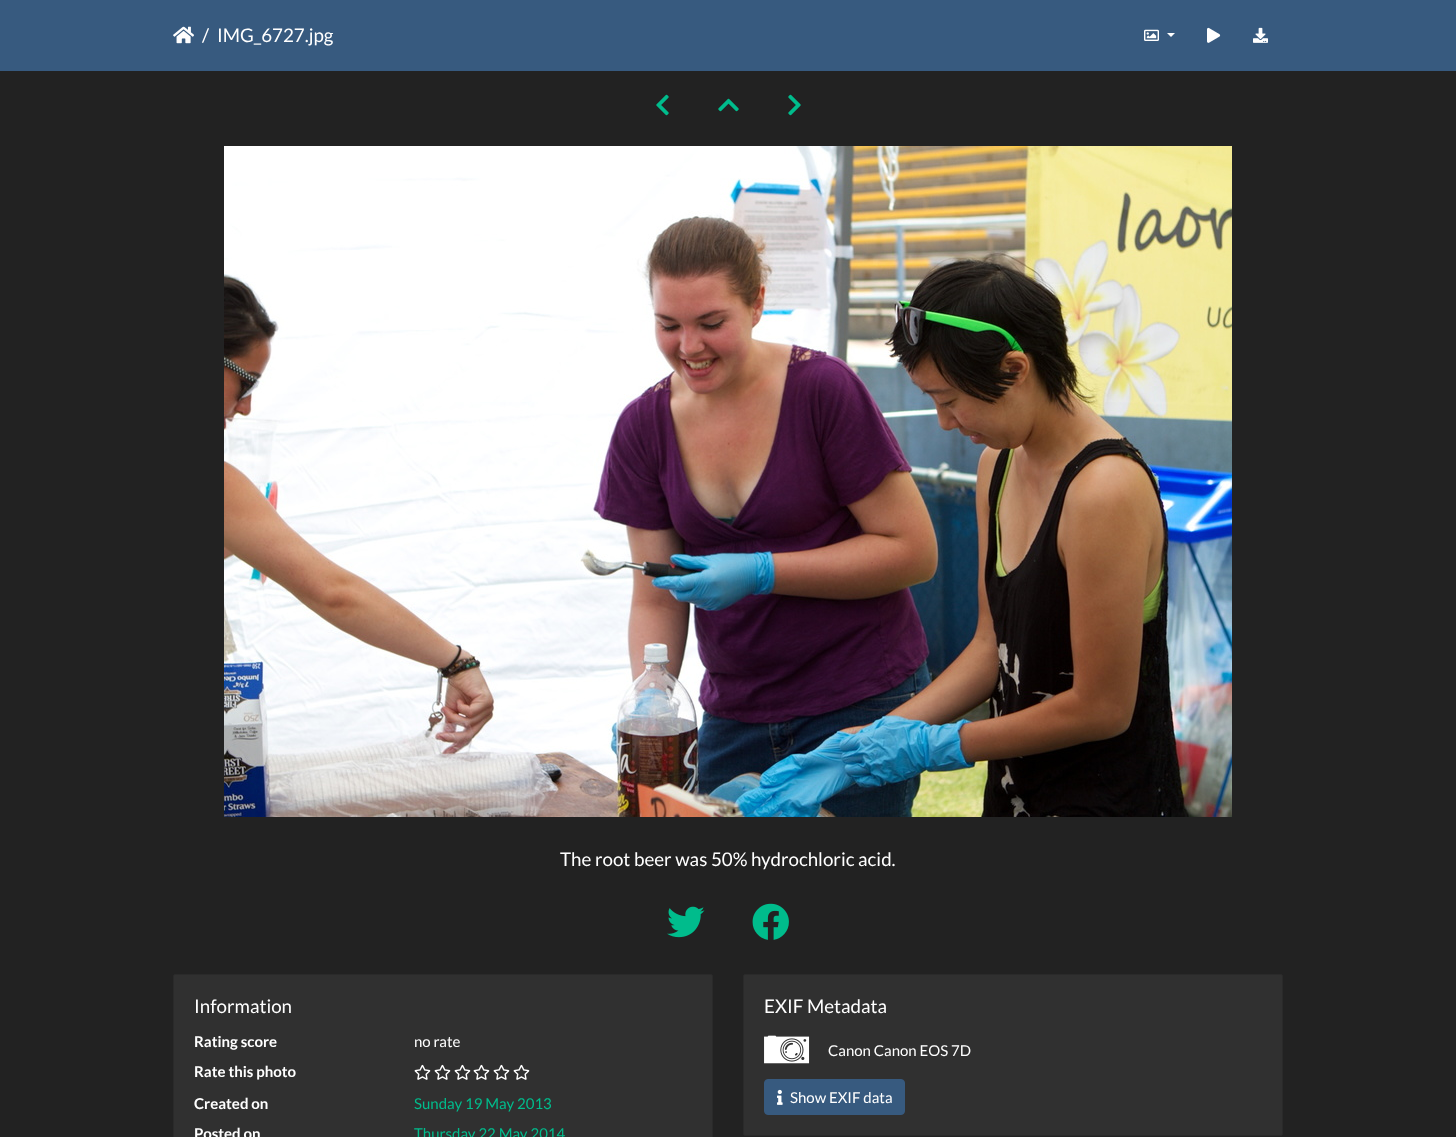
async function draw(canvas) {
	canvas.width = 1456;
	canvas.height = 1137;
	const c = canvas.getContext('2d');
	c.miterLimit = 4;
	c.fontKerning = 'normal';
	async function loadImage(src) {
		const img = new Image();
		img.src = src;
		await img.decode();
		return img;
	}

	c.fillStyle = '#222';
	c.fillRect(0, 0, 1456, 1137);
	c.fillStyle = '#375a7f';
	c.fillRect(0, 0, 1456, 71);
	c.drawImage(await loadImage('img1.png'), 173, 26, 21, 18);
	c.font = '18.75px Lato';
	c.fillStyle = '#fff';
	c.fillText('/', 202, 42);
	c.fillText('IMG_6727.jpg', 217, 42);
	c.drawImage(await loadImage('img2.png'), 1144, 29, 15, 12);
	c.beginPath();
	c.moveTo(1167, 33);
	c.lineTo(1175, 33);
	c.lineTo(1171, 37);
	c.closePath();
	c.fill();
	c.drawImage(await loadImage('img3.png'), 1207, 27, 14, 16);
	c.drawImage(await loadImage('img4.png'), 1253, 27, 15, 16);
	c.drawImage(await loadImage('img5.png'), 656, 94, 13, 22);
	c.drawImage(await loadImage('img6.png'), 718, 98, 21, 14);
	c.drawImage(await loadImage('img7.png'), 788, 94, 13, 22);
	c.drawImage(await loadImage('img8.png'), 224, 146, 1008, 671);
	c.fillText('The root beer was 50% hydrochloric acid.', 560, 866);
	c.drawImage(await loadImage('img9.png'), 667, 906, 38, 32);
	c.drawImage(await loadImage('img10.png'), 752, 903, 37, 37);
	c.fillStyle = '#303030';
	c.beginPath();
	c.roundRect(173.5, 974.5, 539, 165, 1.5);
	c.fill();
	c.strokeStyle = '#2a2a2a';
	c.stroke();
	c.fillStyle = '#fff';
	c.fillText('Information', 194, 1013);
	c.font = 'bold 15px Lato';
	c.fillText('Rating score', 194, 1047);
	c.font = '15px Lato';
	c.fillText('no rate', 414, 1047);
	c.font = 'bold 15px Lato';
	c.fillText('Rate this photo', 194, 1077);
	c.drawImage(await loadImage('img11.png'), 414, 1064, 17, 16);
	c.drawImage(await loadImage('img11.png'), 434, 1064, 17, 16);
	c.drawImage(await loadImage('img11.png'), 454, 1064, 17, 16);
	c.drawImage(await loadImage('img11.png'), 473, 1064, 17, 16);
	c.drawImage(await loadImage('img11.png'), 493, 1064, 17, 16);
	c.drawImage(await loadImage('img11.png'), 513, 1064, 17, 16);
	c.fillText('Created on', 194, 1109);
	c.font = '15px Lato';
	c.fillStyle = '#00bc8c';
	c.fillText('Sunday 19 May 2013', 414, 1109);
	c.font = 'bold 15px Lato';
	c.fillStyle = '#fff';
	c.fillText('Posted on', 194, 1139);
	c.font = '15px Lato';
	c.fillStyle = '#00bc8c';
	c.fillText('Thursday 22 May 2014', 414, 1139);
	c.fillStyle = '#303030';
	c.beginPath();
	c.roundRect(743.5, 974.5, 539, 161, 1.5);
	c.fill();
	c.stroke();
	c.font = '18.75px Lato';
	c.fillStyle = '#fff';
	c.fillText('EXIF Metadata', 764, 1013);
	c.drawImage(await loadImage('img12.png'), 764, 1035, 46, 29);
	c.font = '15px Lato';
	c.fillText('Canon Canon EOS 7D', 828, 1056);
	c.fillStyle = '#375a7f';
	c.beginPath();
	c.roundRect(764.5, 1079.5, 140, 35, 3.5);
	c.fill();
	c.strokeStyle = '#375a7f';
	c.stroke();
	c.drawImage(await loadImage('img13.png'), 777, 1089, 6, 16);
	c.fillStyle = '#fff';
	c.fillText('Show EXIF data', 790, 1103);
}

draw(document.querySelector('canvas'));
